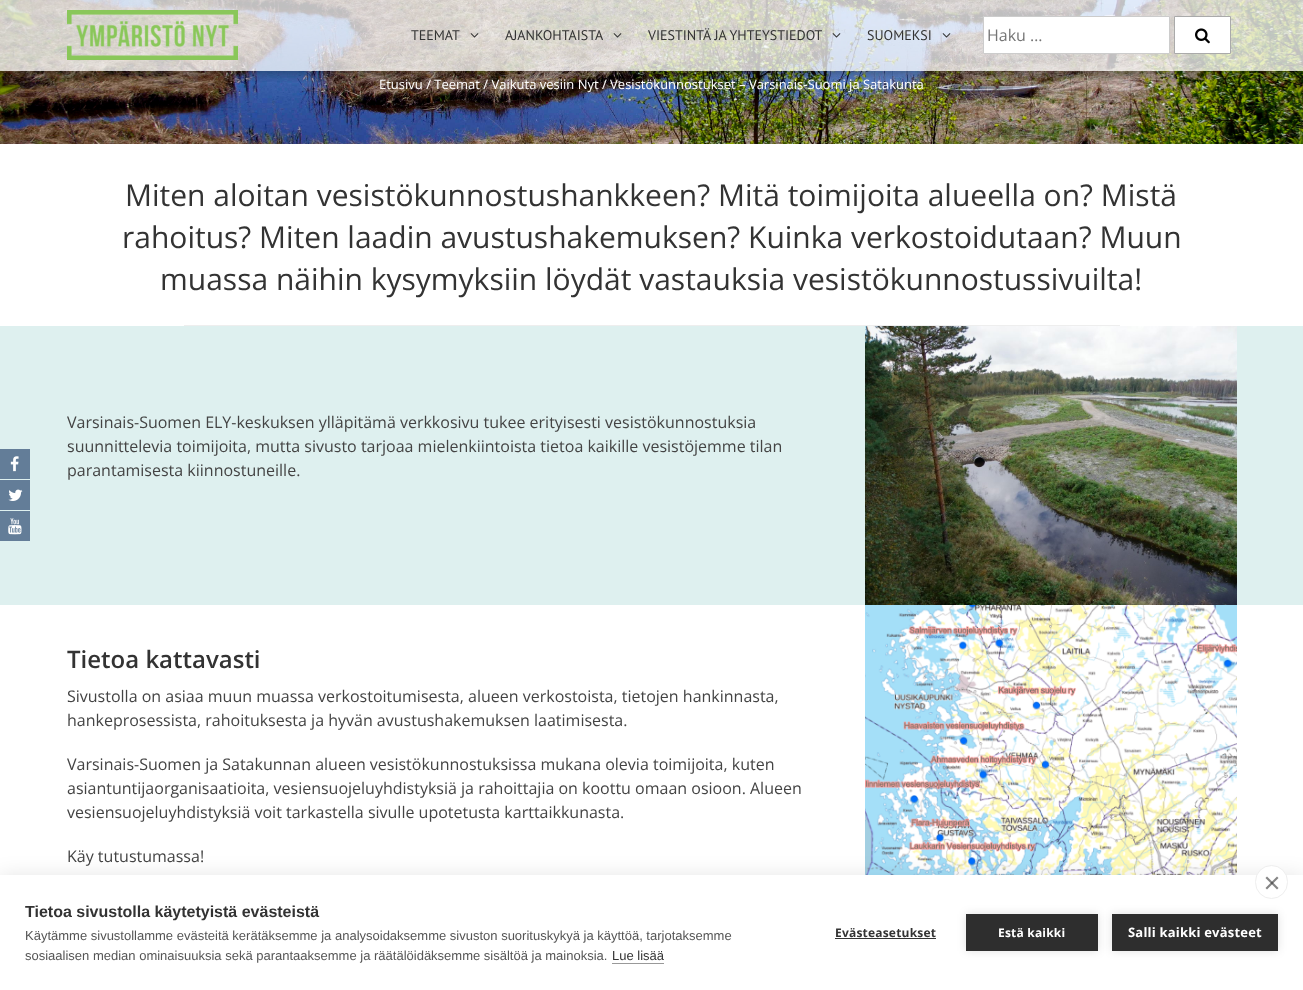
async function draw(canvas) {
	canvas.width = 1303;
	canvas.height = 990;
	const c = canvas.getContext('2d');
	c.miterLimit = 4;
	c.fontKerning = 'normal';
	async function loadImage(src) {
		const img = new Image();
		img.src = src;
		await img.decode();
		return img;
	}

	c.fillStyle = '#fff';
	c.fillRect(0, 0, 1303, 990);
	c.drawImage(await loadImage('img10.png'), 0, 0, 1303, 144);
	c.save();
	c.beginPath();
	c.rect(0, 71, 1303, 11);
	c.clip();
	c.fillStyle = '#0000004d';
	c.filter = 'blur(5px)';
	c.beginPath();
	c.rect(0, 4, 1303, 71);
	c.fill();
	c.filter = 'none';
	c.restore();
	c.fillStyle = '#ffffffbf';
	c.fillRect(0, 0, 1303, 71);
	c.drawImage(await loadImage('img1.png'), 67, 10, 171, 50);
	c.font = '14px PT Sans';
	c.fillStyle = '#333';
	c.fillText('TEEMAT', 411, 40);
	c.drawImage(await loadImage('img2.png'), 470, 33, 9, 5);
	c.fillText('AJANKOHTAISTA', 505, 40);
	c.drawImage(await loadImage('img3.png'), 613, 33, 9, 5);
	c.fillText('VIESTINTÄ JA YHTEYSTIEDOT', 648, 40);
	c.drawImage(await loadImage('img4.png'), 832, 33, 9, 5);
	c.fillText('SUOMEKSI', 867, 40);
	c.drawImage(await loadImage('img5.png'), 942, 33, 9, 5);
	c.fillStyle = '#fff';
	c.beginPath();
	c.rect(983.5, 16.5, 186, 37);
	c.fill();
	c.strokeStyle = '#ccc';
	c.stroke();
	c.font = '16px Open Sans';
	c.fillStyle = '#757575';
	c.fillText('Haku …', 987, 41);
	c.fillStyle = '#fff';
	c.beginPath();
	c.rect(1174.5, 16.5, 56, 37);
	c.fill();
	c.strokeStyle = '#aaa';
	c.stroke();
	c.drawImage(await loadImage('img6.png'), 1195, 28, 15, 16);
	c.fillStyle = '#def0ef';
	c.fillRect(0, 326, 1303, 279);
	c.fillStyle = '#637d98';
	c.fillRect(0, 449, 30, 30);
	c.drawImage(await loadImage('img7.png'), 10, 456, 9, 16);
	c.fillRect(0, 480, 30, 30);
	c.drawImage(await loadImage('img8.png'), 8, 489, 15, 12);
	c.fillRect(0, 511, 30, 30);
	c.drawImage(await loadImage('img9.png'), 8, 518, 14, 17);
	c.font = '13px Open Sans';
	c.fillStyle = '#fff';
	c.fillText('Etusivu / Teemat / Vaikuta vesiin Nyt / Vesistökunnostukset – Varsinais-Suomi ja Satakunta', 379, 89);
	c.font = '30px Open Sans';
	c.fillStyle = '#333';
	for (const [text, x, y] of [
		['Miten aloitan vesistökunnostushankkeen? Mitä toimijoita alueella on? Mistä', 125, 206],
		['rahoitus? Miten laadin avustushakemuksen? Kuinka verkostoidutaan? Muun', 122, 248],
		['muassa näihin kysymyksiin löydät vastauksia vesistökunnostussivuilta!', 160, 290],
	]) {
		c.fillText(text, x, y);
	}
	c.fillStyle = '#eee';
	c.fillRect(184, 325, 936, 1);
	c.font = '16px Open Sans';
	c.fillStyle = '#444';
	for (const [text, x, y] of [
		['Varsinais-Suomen ELY-keskuksen ylläpitämä verkkosivu tukee erityisesti vesistökunnostuksia', 67, 428],
		['suunnittelevia toimijoita, mutta sivusto tarjoaa mielenkiintoista tietoa kaikille vesistöjemme tilan', 67, 452],
		['parantamisesta kiinnostuneille.', 67, 476],
	]) {
		c.fillText(text, x, y);
	}
	c.drawImage(await loadImage('img11.png'), 865, 326, 372, 279);
	c.font = '600 24px Open Sans';
	c.fillStyle = '#333';
	c.fillText('Tietoa kattavasti', 67, 668);
	c.font = '16px Open Sans';
	c.fillStyle = '#444';
	for (const [text, x, y] of [
		['Sivustolla on asiaa muun muassa verkostoitumisesta, alueen verkostoista, tietojen hankinnasta,', 67, 702],
		['hankeprosessista, rahoituksesta ja hyvän avustushakemuksen laatimisesta.', 67, 726],
		['Varsinais-Suomen ja Satakunnan alueen vesistökunnostuksissa mukana olevia toimijoita, kuten', 67, 770],
		['asiantuntijaorganisaatioita, vesiensuojeluyhdistyksiä ja rahoittajia on koottu omaan osioon. Alueen', 67, 794],
		['vesiensuojeluyhdistyksiä voit tarkastella sivulle upotetusta karttaikkunasta.', 67, 818],
		['Käy tutustumassa!', 67, 862],
	]) {
		c.fillText(text, x, y);
	}
	c.drawImage(await loadImage('img12.png'), 865, 605, 372, 270);
	c.fillStyle = '#0000001a';
	c.filter = 'blur(10px)';
	c.beginPath();
	c.rect(0, 875, 1303, 115);
	c.fill();
	c.filter = 'none';
	c.fillStyle = '#fff';
	c.fillRect(0, 875, 1303, 115);
	c.fillStyle = '#0000001f';
	c.filter = 'blur(5px)';
	c.beginPath();
	c.rect(966, 914, 132, 37);
	c.fill();
	c.filter = 'none';
	c.fillStyle = '#2e2e2e';
	c.fillRect(966, 914, 132, 37);
	c.fillStyle = '#0000001f';
	c.filter = 'blur(5px)';
	c.beginPath();
	c.rect(1112, 914, 166, 37);
	c.fill();
	c.filter = 'none';
	c.fillStyle = '#fff';
	c.beginPath();
	c.roundRect(1255.5, 865.5, 32, 33, 16);
	c.fill();
	c.strokeStyle = '#eee';
	c.stroke();
	c.fillStyle = '#858585';
	c.beginPath();
	c.moveTo(1265.5, 888);
	c.lineTo(1277, 876.5);
	c.lineTo(1278.5, 878);
	c.lineTo(1267, 889.5);
	c.closePath();
	c.fill();
	c.fillStyle = '#33333399';
	c.beginPath();
	c.moveTo(1267, 876.5);
	c.lineTo(1278.5, 888);
	c.lineTo(1277, 889.5);
	c.lineTo(1265.5, 878);
	c.closePath();
	c.fill();
	c.font = 'bold 16px Liberation Sans';
	c.fillStyle = '#333';
	c.fillText('Tietoa sivustolla käytetyistä evästeistä', 25, 917);
	c.font = '13px Liberation Sans';
	c.fillStyle = '#555';
	c.fillText('Käytämme sivustollamme evästeitä kerätäksemme ja analysoidaksemme sivuston suorituskykyä ja käyttöä, tarjotaksemme', 25, 940);
	c.fillText('sosiaalisen median ominaisuuksia sekä parantaaksemme ja räätälöidäksemme sisältöä ja mainoksia.', 25, 960);
	c.fillStyle = '#333';
	c.fillText('Lue lisää', 612, 960);
	c.fillStyle = '#999';
	c.fillRect(612, 963, 52, 1);
	c.letterSpacing = '0.2px';
	c.font = 'bold 12px Open Sans';
	c.fillStyle = '#333';
	c.fillText('Evästeasetukset', 835, 937);
	c.fillRect(835, 938, 101, 1);
	c.fillStyle = '#fff';
	c.fillText('Estä kaikki', 998, 937);
	c.fillStyle = '#2e2e2e';
	c.fillRect(1112, 914, 166, 37);
	c.font = 'bold 13px Open Sans';
	c.fillStyle = '#fff';
	c.fillText('Salli kaikki evästeet', 1128, 937);
}

draw(document.querySelector('canvas'));
